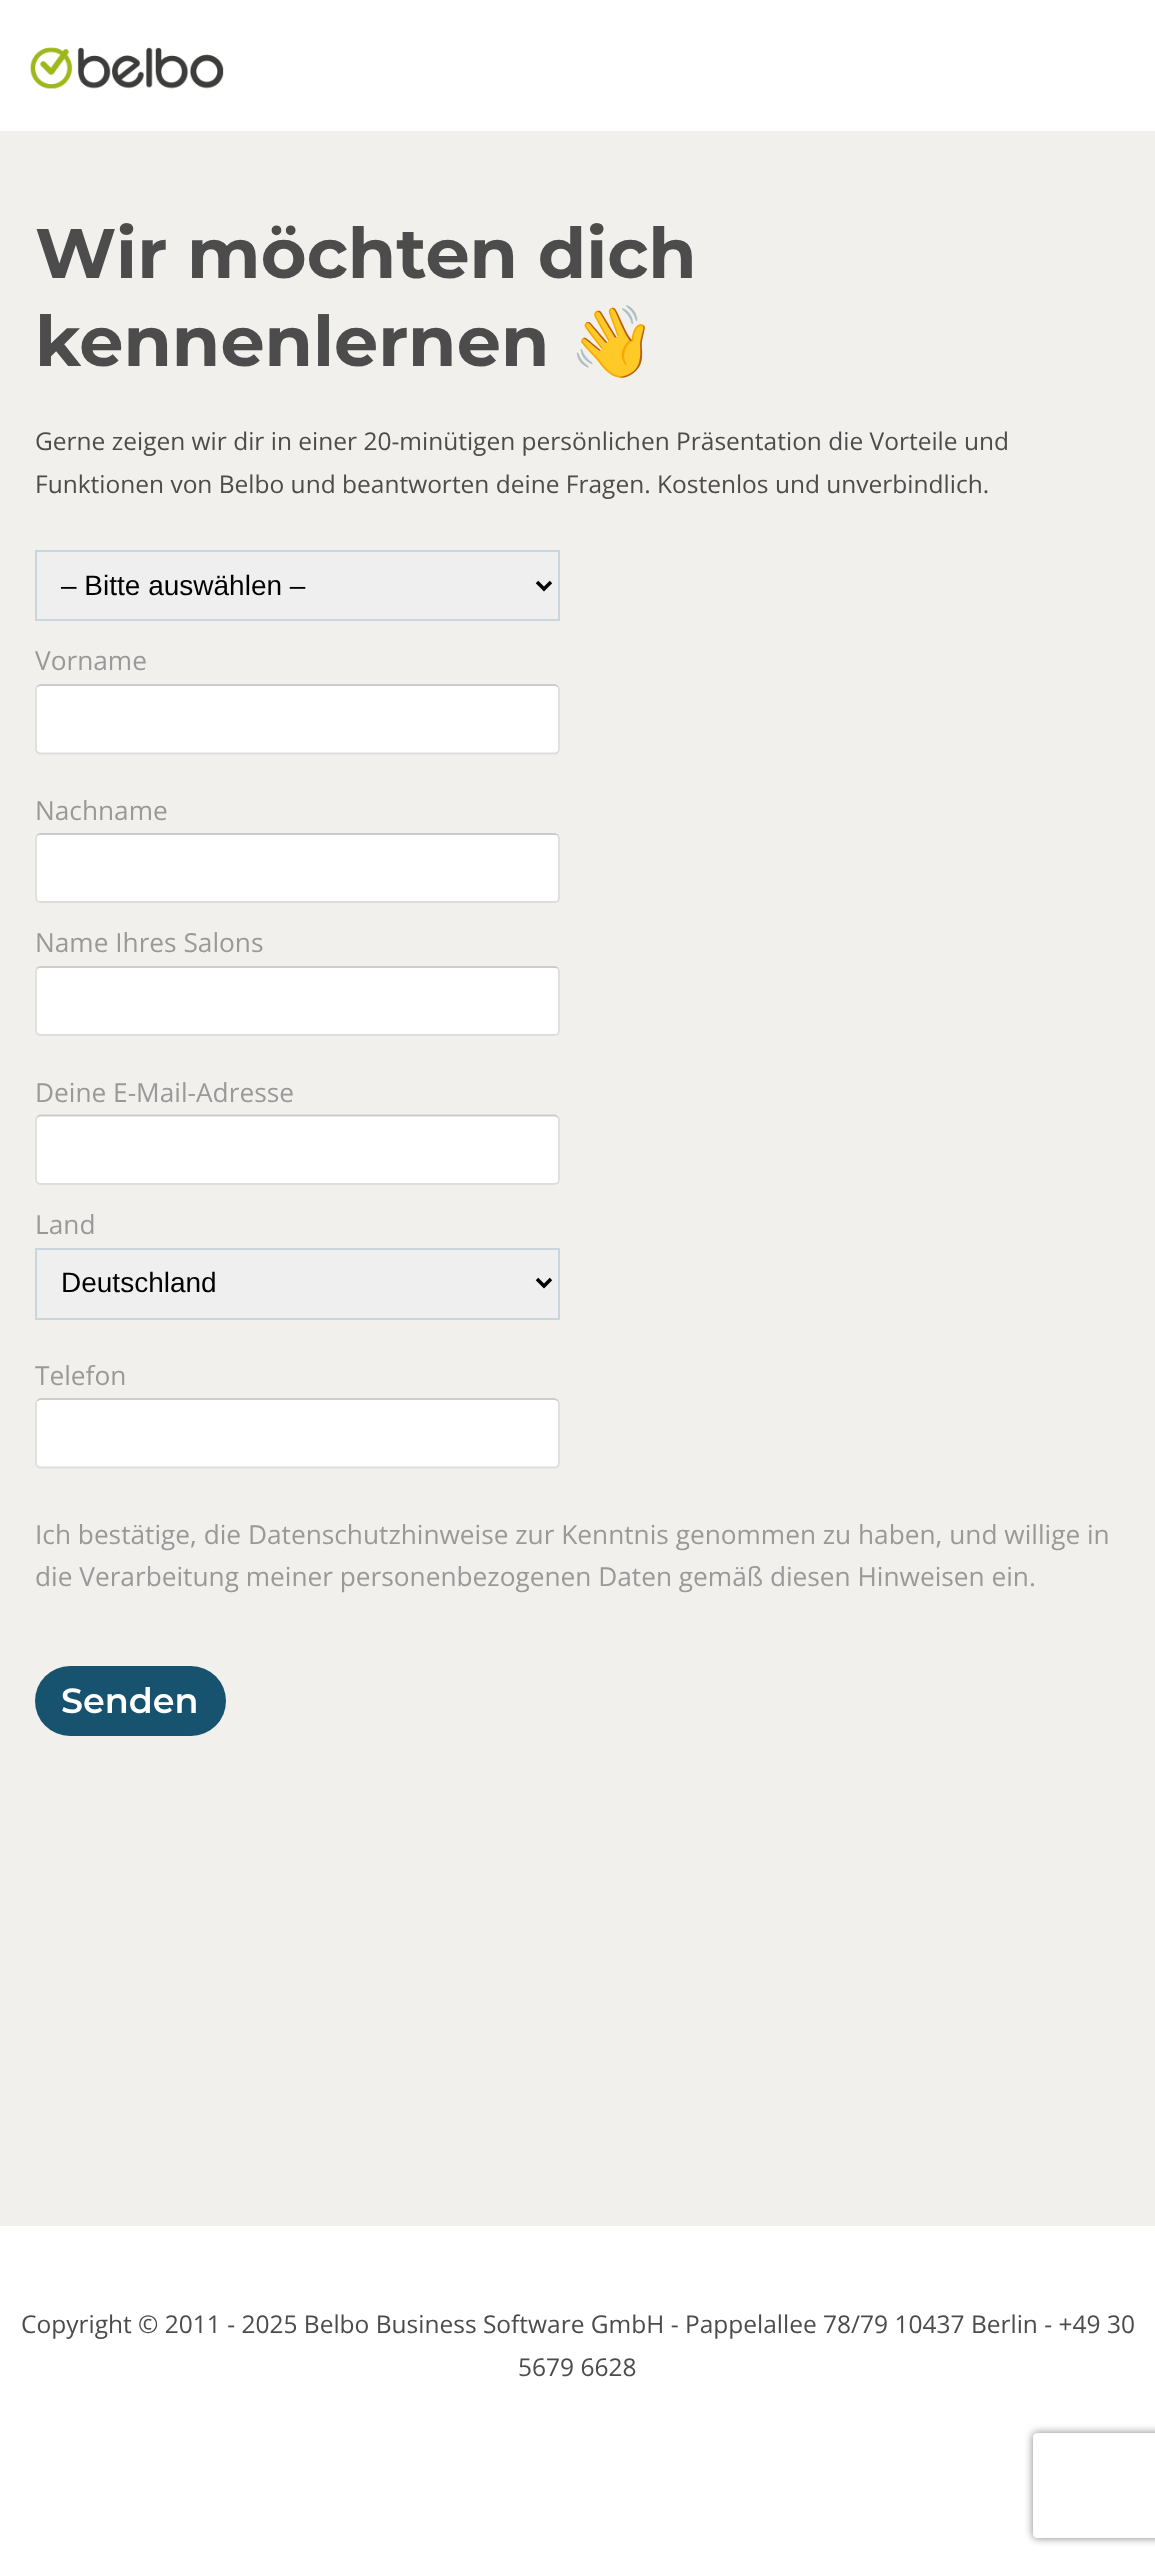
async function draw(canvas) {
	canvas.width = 1155;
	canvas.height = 2561;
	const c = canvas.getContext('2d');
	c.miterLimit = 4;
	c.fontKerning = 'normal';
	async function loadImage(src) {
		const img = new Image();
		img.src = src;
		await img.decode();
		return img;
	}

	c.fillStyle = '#fff';
	c.fillRect(0, 0, 1155, 2561);
	c.drawImage(await loadImage('img1.png'), 30, 47, 194, 42);
	c.fillStyle = '#f2f0ed';
	c.fillRect(0, 131, 1155, 2095);
	c.font = 'bold 70px Montserrat';
	c.fillStyle = '#4d4c4c';
	c.fillText('Wir möchten dich', 35, 278);
	c.fillText('kennenlernen', 35, 366);
	c.font = 'bold 70px Noto Color Emoji';
	c.fillText('👋', 569, 366);
	c.font = '24.5px Open Sans';
	c.fillText('Gerne zeigen wir dir in einer 20-minütigen persönlichen Präsentation die Vorteile und', 35, 450);
	c.fillText('Funktionen von Belbo und beantworten deine Fragen. Kostenlos und unverbindlich.', 35, 493);
	c.fillStyle = '#efefef';
	c.beginPath();
	c.rect(36, 551, 523, 69);
	c.fill();
	c.strokeStyle = '#c9d7dd';
	c.lineWidth = 2;
	c.stroke();
	c.beginPath();
	c.moveTo(537, 582);
	c.lineTo(544, 589);
	c.lineTo(551, 582);
	c.strokeStyle = '#000';
	c.lineWidth = 3.5;
	c.stroke();
	c.font = '28px Liberation Sans';
	c.fillStyle = '#000';
	c.fillText('– Bitte auswählen –', 61, 595);
	c.font = '26.25px Open Sans';
	c.fillStyle = '#999';
	c.fillText('Vorname', 35, 670);
	c.fillStyle = '#fff';
	c.beginPath();
	c.roundRect(35, 684, 525, 70, 5);
	c.fill();
	c.beginPath();
	c.moveTo(37, 686.5);
	c.lineTo(40, 685);
	c.lineTo(555, 685);
	c.lineTo(558, 686.5);
	c.strokeStyle = '#ccc';
	c.lineWidth = 1.8;
	c.stroke();
	c.beginPath();
	c.moveTo(558, 686.5);
	c.bezierCurveTo(558.5, 687, 559, 688.5, 559, 689.5);
	c.lineTo(559, 749);
	c.bezierCurveTo(559, 750, 558.5, 751.5, 558, 752);
	c.bezierCurveTo(557, 753, 556, 753.5, 555, 753.5);
	c.lineTo(40, 753.5);
	c.bezierCurveTo(39, 753.5, 38, 753, 37, 752);
	c.bezierCurveTo(36.5, 751.5, 36, 750, 36, 749);
	c.lineTo(36, 689.5);
	c.bezierCurveTo(36, 688.5, 36.5, 687, 37, 686.5);
	c.strokeStyle = '#ddd';
	c.stroke();
	c.fillStyle = '#999';
	c.fillText('Nachname', 35, 820);
	c.fillStyle = '#fff';
	c.beginPath();
	c.roundRect(35, 833, 525, 70, 5);
	c.fill();
	c.beginPath();
	c.moveTo(37, 835);
	c.lineTo(40, 834);
	c.lineTo(555, 834);
	c.lineTo(558, 835);
	c.strokeStyle = '#ccc';
	c.stroke();
	c.beginPath();
	c.moveTo(558, 835);
	c.bezierCurveTo(558.5, 836, 559, 837, 559, 838);
	c.lineTo(559, 898);
	c.bezierCurveTo(559, 899, 558.5, 900, 558, 901);
	c.bezierCurveTo(557, 901.5, 556, 902, 555, 902);
	c.lineTo(40, 902);
	c.bezierCurveTo(39, 902, 38, 901.5, 37, 901);
	c.bezierCurveTo(36.5, 900, 36, 899, 36, 898);
	c.lineTo(36, 838);
	c.bezierCurveTo(36, 837, 36.5, 836, 37, 835);
	c.strokeStyle = '#ddd';
	c.stroke();
	c.fillStyle = '#999';
	c.fillText('Name Ihres Salons', 35, 952);
	c.fillStyle = '#fff';
	c.beginPath();
	c.roundRect(35, 966, 525, 70, 5);
	c.fill();
	c.beginPath();
	c.moveTo(37, 968);
	c.lineTo(40, 967);
	c.lineTo(555, 967);
	c.lineTo(558, 968);
	c.strokeStyle = '#ccc';
	c.stroke();
	c.beginPath();
	c.moveTo(558, 968);
	c.bezierCurveTo(558.5, 969, 559, 970, 559, 971);
	c.lineTo(559, 1031);
	c.bezierCurveTo(559, 1032, 558.5, 1033, 558, 1034);
	c.bezierCurveTo(557, 1034.5, 556, 1035, 555, 1035);
	c.lineTo(40, 1035);
	c.bezierCurveTo(39, 1035, 38, 1034.5, 37, 1034);
	c.bezierCurveTo(36.5, 1033, 36, 1032, 36, 1031);
	c.lineTo(36, 971);
	c.bezierCurveTo(36, 970, 36.5, 969, 37, 968);
	c.strokeStyle = '#ddd';
	c.stroke();
	c.fillStyle = '#999';
	c.fillText('Deine E-Mail-Adresse', 35, 1102);
	c.fillStyle = '#fff';
	c.beginPath();
	c.roundRect(35, 1115, 525, 70, 5);
	c.fill();
	c.beginPath();
	c.moveTo(37, 1117);
	c.lineTo(40, 1115.5);
	c.lineTo(555, 1115.5);
	c.lineTo(558, 1117);
	c.strokeStyle = '#ccc';
	c.stroke();
	c.beginPath();
	c.moveTo(558, 1117);
	c.bezierCurveTo(558.5, 1117.5, 559, 1119, 559, 1120);
	c.lineTo(559, 1179.5);
	c.bezierCurveTo(559, 1180.5, 558.5, 1182, 558, 1182.5);
	c.bezierCurveTo(557, 1183.5, 556, 1184, 555, 1184);
	c.lineTo(40, 1184);
	c.bezierCurveTo(39, 1184, 38, 1183.5, 37, 1182.5);
	c.bezierCurveTo(36.5, 1182, 36, 1180.5, 36, 1179.5);
	c.lineTo(36, 1120);
	c.bezierCurveTo(36, 1119, 36.5, 1117.5, 37, 1117);
	c.strokeStyle = '#ddd';
	c.stroke();
	c.fillStyle = '#999';
	c.fillText('Land', 35, 1234);
	c.fillStyle = '#efefef';
	c.beginPath();
	c.rect(36, 1249, 523, 70);
	c.fill();
	c.strokeStyle = '#c9d7dd';
	c.lineWidth = 2;
	c.stroke();
	c.beginPath();
	c.moveTo(537, 1279);
	c.lineTo(544, 1286);
	c.lineTo(551, 1279);
	c.strokeStyle = '#000';
	c.lineWidth = 3.5;
	c.stroke();
	c.font = '28px Liberation Sans';
	c.fillStyle = '#000';
	c.fillText('Deutschland', 61, 1292);
	c.font = '26.25px Open Sans';
	c.fillStyle = '#999';
	c.fillText('Telefon', 35, 1385);
	c.fillStyle = '#fff';
	c.beginPath();
	c.roundRect(35, 1398, 525, 70, 5);
	c.fill();
	c.beginPath();
	c.moveTo(37, 1400.5);
	c.lineTo(40, 1399);
	c.lineTo(555, 1399);
	c.lineTo(558, 1400.5);
	c.strokeStyle = '#ccc';
	c.lineWidth = 1.8;
	c.stroke();
	c.beginPath();
	c.moveTo(558, 1400.5);
	c.bezierCurveTo(558.5, 1401, 559, 1402.5, 559, 1403.5);
	c.lineTo(559, 1463);
	c.bezierCurveTo(559, 1464, 558.5, 1465.5, 558, 1466);
	c.bezierCurveTo(557, 1467, 556, 1467.5, 555, 1467.5);
	c.lineTo(40, 1467.5);
	c.bezierCurveTo(39, 1467.5, 38, 1467, 37, 1466);
	c.bezierCurveTo(36.5, 1465.5, 36, 1464, 36, 1463);
	c.lineTo(36, 1403.5);
	c.bezierCurveTo(36, 1402.5, 36.5, 1401, 37, 1400.5);
	c.strokeStyle = '#ddd';
	c.stroke();
	c.fillStyle = '#999';
	c.fillText('Ich bestätige, die Datenschutzhinweise zur Kenntnis genommen zu haben, und willige in', 35, 1544);
	c.fillText('die Verarbeitung meiner personenbezogenen Daten gemäß diesen Hinweisen ein.', 35, 1586);
	c.fillStyle = '#17526e';
	c.beginPath();
	c.roundRect(35, 1666, 191, 70, 35);
	c.fill();
	c.font = '600 35px Montserrat';
	c.fillStyle = '#fff';
	c.fillText('Senden', 61, 1713);
	c.font = '24.5px Open Sans';
	c.fillStyle = '#4d4c4c';
	c.fillText('Copyright © 2011 - 2025 Belbo Business Software GmbH - Pappelallee 78/79 10437 Berlin - +49 30', 21, 2333);
	c.fillText('5679 6628', 518, 2376);
	c.save();
	c.beginPath();
	c.moveTo(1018, 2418);
	c.lineTo(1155, 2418);
	c.lineTo(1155, 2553);
	c.lineTo(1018, 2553);
	c.closePath();
	c.moveTo(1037, 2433);
	c.lineTo(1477, 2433);
	c.bezierCurveTo(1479, 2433, 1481, 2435, 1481, 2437);
	c.lineTo(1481, 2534);
	c.bezierCurveTo(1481, 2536, 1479, 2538, 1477, 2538);
	c.lineTo(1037, 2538);
	c.bezierCurveTo(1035, 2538, 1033, 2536, 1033, 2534);
	c.lineTo(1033, 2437);
	c.bezierCurveTo(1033, 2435, 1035, 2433, 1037, 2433);
	c.closePath();
	c.clip('evenodd');
	c.fillStyle = '#808080';
	c.filter = 'blur(4.5px)';
	c.beginPath();
	c.roundRect(1033, 2433, 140, 105, 4);
	c.fill();
	c.filter = 'none';
	c.restore();
}

draw(document.querySelector('canvas'));
